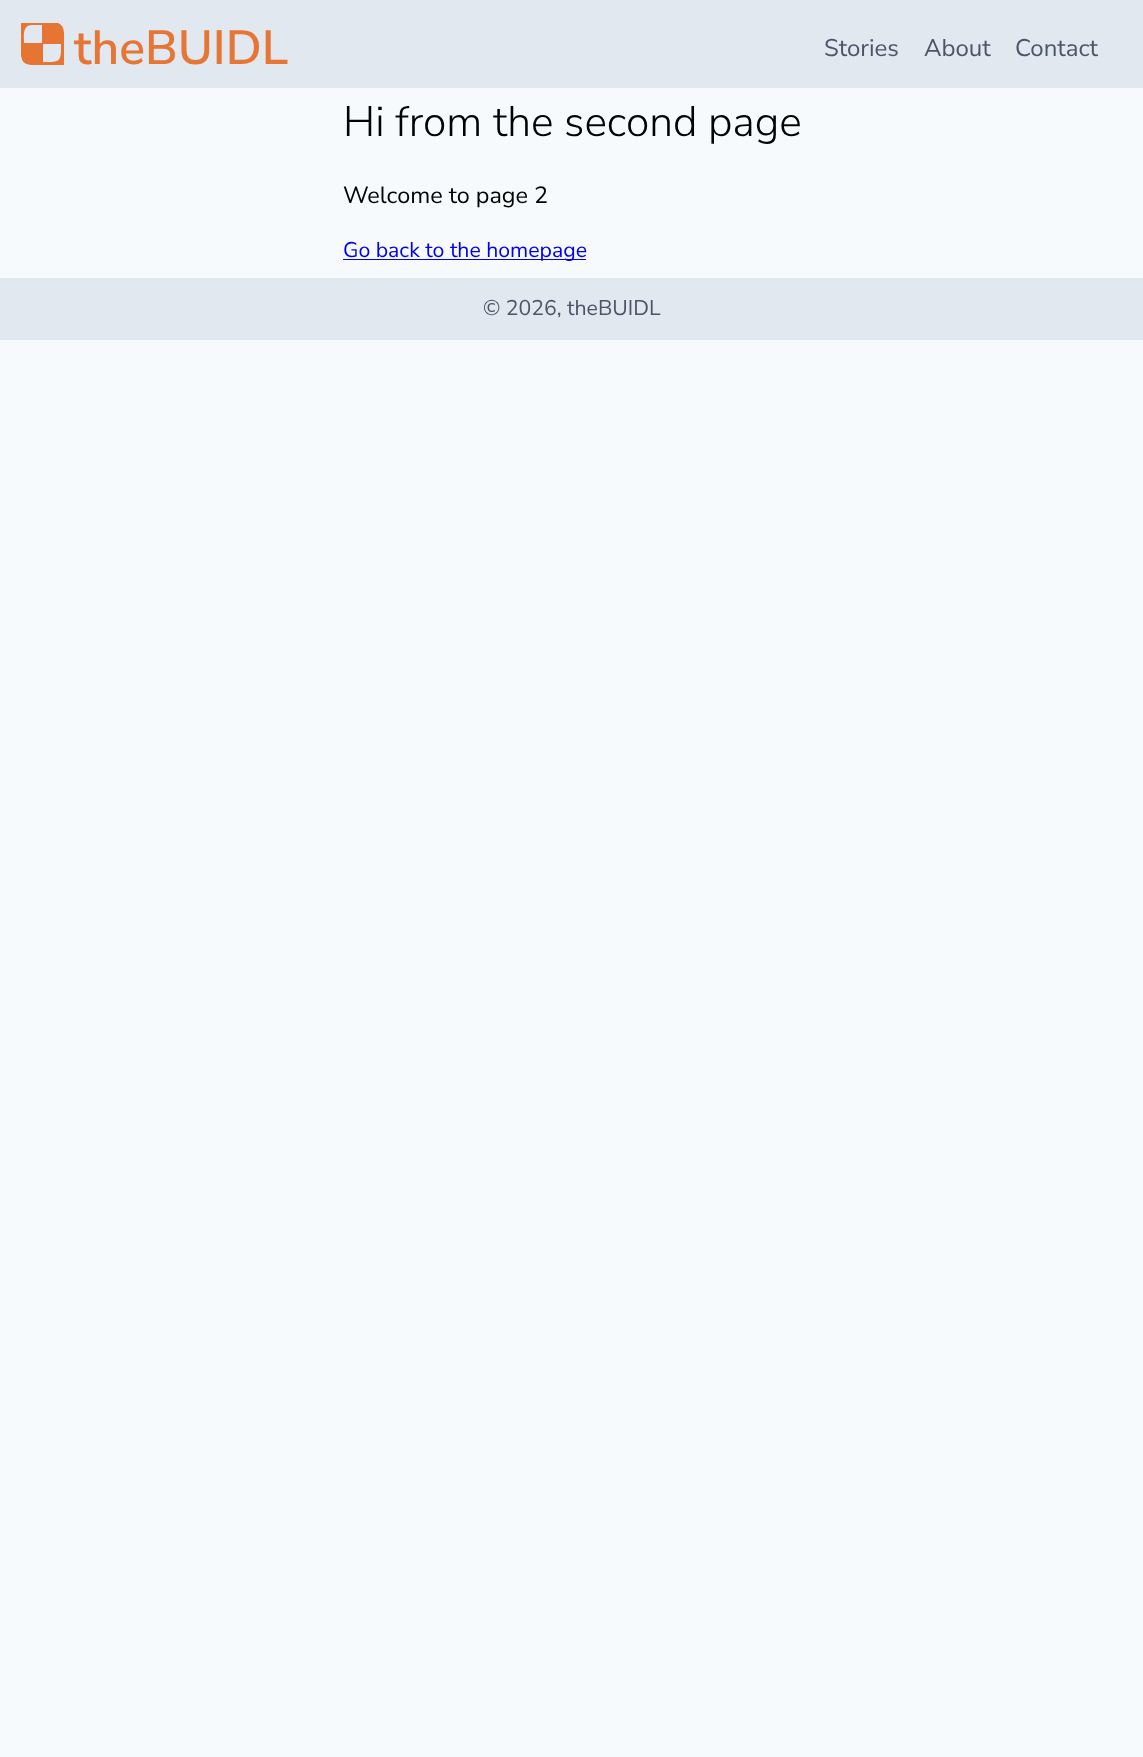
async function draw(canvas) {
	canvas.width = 1143;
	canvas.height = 1757;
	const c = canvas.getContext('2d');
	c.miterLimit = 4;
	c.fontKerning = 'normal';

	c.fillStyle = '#f7fafc';
	c.fillRect(0, 0, 1143, 1757);
	c.fillStyle = '#e2e8f0';
	c.fillRect(0, 0, 1143, 88);
	c.save();
	c.beginPath();
	c.rect(21, 23, 43, 42);
	c.clip();
	c.fillStyle = '#e67433';
	c.beginPath();
	c.moveTo(21, 22);
	c.bezierCurveTo(71, 22, 64, 16, 64, 65);
	c.bezierCurveTo(14, 65, 21, 72, 21, 22);
	c.closePath();
	c.moveTo(43, 62);
	c.bezierCurveTo(61, 62, 61, 62, 61, 44);
	c.lineTo(43, 44);
	c.closePath();
	c.moveTo(32, 25);
	c.lineTo(42, 25);
	c.lineTo(42, 43);
	c.lineTo(24, 43);
	c.bezierCurveTo(24, 37, 22, 25, 32, 25);
	c.closePath();
	c.fill('evenodd');
	c.restore();
	c.font = '600 48px Nunito Sans';
	c.fillStyle = '#e67635';
	c.fillText('theBUIDL', 74, 64);
	c.font = '24px Nunito Sans';
	c.fillStyle = '#4a5568';
	for (const [text, x, y] of [
		['Stories', 824, 56],
		['About', 924, 56],
		['Contact', 1015, 56],
	]) {
		c.fillText(text, x, y);
	}
	c.font = '300 42.5px Nunito Sans';
	c.fillStyle = '#000';
	c.fillText('Hi from the second page', 343, 136);
	c.font = '23.4px Nunito Sans';
	c.fillText('Welcome to page 2', 343, 203);
	c.fillStyle = '#00e';
	c.fillRect(343, 259, 243, 1);
	c.font = '21.25px Nunito Sans';
	c.fillText('Go back to the homepage', 343, 257);
	c.fillStyle = '#e2e8f0';
	c.fillRect(0, 278, 1143, 62);
	c.fillStyle = '#4a5568';
	c.fillText('© 2026, theBUIDL', 483, 315);
}

draw(document.querySelector('canvas'));
